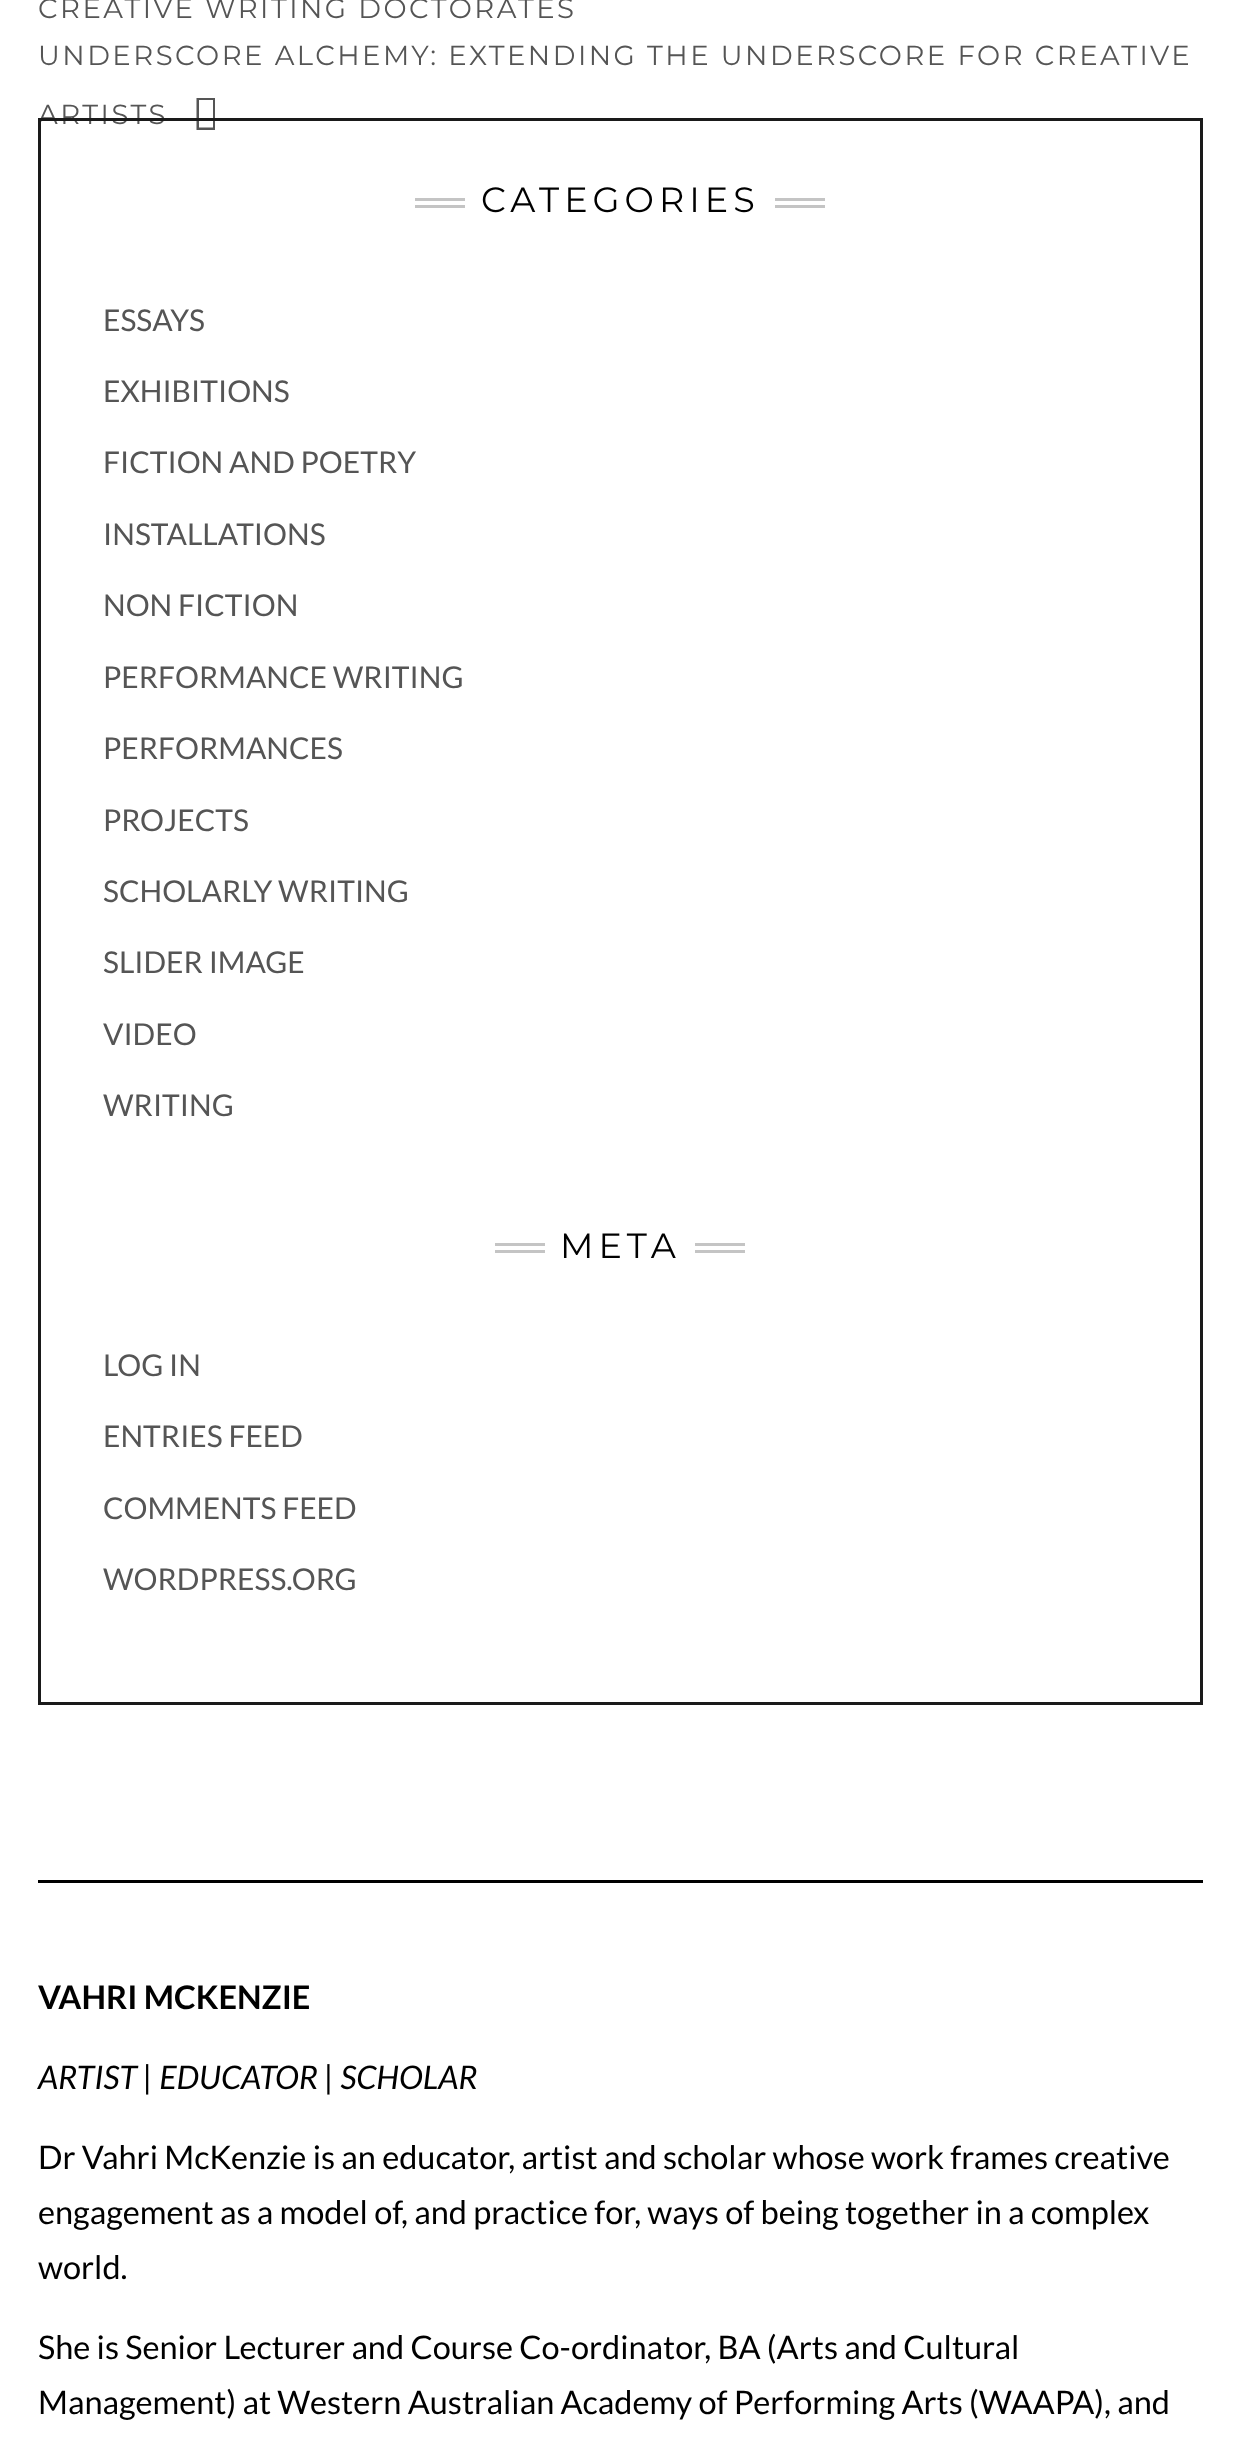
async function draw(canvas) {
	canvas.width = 1240;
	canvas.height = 2442;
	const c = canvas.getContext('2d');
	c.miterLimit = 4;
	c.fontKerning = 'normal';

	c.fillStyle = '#fff';
	c.fillRect(0, 0, 1240, 2442);
	c.letterSpacing = '2.5px';
	c.font = '27.5px Montserrat';
	c.fillStyle = '#555';
	for (const [text, x, y] of [
		['CREATIVE WRITING DOCTORATES', 38, 18],
		['UNDERSCORE ALCHEMY: EXTENDING THE UNDERSCORE FOR CREATIVE', 38, 65],
		['ARTISTS', 38, 124],
	]) {
		c.fillText(text, x, y);
	}
	c.beginPath();
	c.moveTo(196.5, 130);
	c.lineTo(196.5, 98);
	c.lineTo(215, 98);
	c.lineTo(215, 130);
	c.closePath();
	c.moveTo(199, 127.5);
	c.lineTo(213, 127.5);
	c.lineTo(213, 100);
	c.lineTo(199, 100);
	c.closePath();
	c.fill();
	c.strokeStyle = '#1a1a1a';
	c.lineWidth = 3;
	c.strokeRect(39.5, 119.5, 1162, 1584);
	c.fillStyle = '#c4c4c4';
	c.fillRect(415, 198, 50, 3);
	c.fillRect(415, 205, 50, 3);
	c.letterSpacing = '5px';
	c.font = '35px Montserrat';
	c.fillStyle = '#000';
	c.fillText('CATEGORIES', 481, 212);
	c.fillStyle = '#c4c4c4';
	c.fillRect(775, 198, 50, 3);
	c.fillRect(775, 205, 50, 3);
	c.letterSpacing = '0px';
	c.font = '30px Lato';
	c.fillStyle = '#555';
	for (const [text, x, y] of [
		['ESSAYS', 103, 331],
		['EXHIBITIONS', 103, 402],
		['FICTION AND POETRY', 103, 473],
		['INSTALLATIONS', 103, 545],
		['NON FICTION', 103, 616],
		['PERFORMANCE WRITING', 103, 688],
		['PERFORMANCES', 103, 759],
		['PROJECTS', 103, 831],
		['SCHOLARLY WRITING', 103, 902],
		['SLIDER IMAGE', 103, 973],
		['VIDEO', 103, 1045],
		['WRITING', 103, 1116],
	]) {
		c.fillText(text, x, y);
	}
	c.fillStyle = '#c4c4c4';
	c.fillRect(495, 1243, 50, 3);
	c.fillRect(495, 1250, 50, 3);
	c.letterSpacing = '5px';
	c.font = '35px Montserrat';
	c.fillStyle = '#000';
	c.fillText('META', 560, 1258);
	c.fillStyle = '#c4c4c4';
	c.fillRect(695, 1243, 50, 3);
	c.fillRect(695, 1250, 50, 3);
	c.letterSpacing = '0px';
	c.font = '30px Lato';
	c.fillStyle = '#555';
	for (const [text, x, y] of [
		['LOG IN', 103, 1376],
		['ENTRIES FEED', 103, 1447],
		['COMMENTS FEED', 103, 1519],
		['WORDPRESS.ORG', 103, 1590],
	]) {
		c.fillText(text, x, y);
	}
	c.fillStyle = '#000';
	c.fillRect(38, 1880, 1165, 3);
	c.font = 'bold 32.5px Lato';
	c.fillText('VAHRI MCKENZIE', 38, 2009);
	c.font = 'italic 32.5px Lato';
	c.fillText('ARTIST | EDUCATOR | SCHOLAR', 38, 2089);
	c.font = '32.5px Lato';
	for (const [text, x, y] of [
		['Dr Vahri McKenzie is an educator, artist and scholar whose work frames creative', 38, 2169],
		['engagement as a model of, and practice for, ways of being together in a complex', 38, 2224],
		['world.', 38, 2279],
		['She is Senior Lecturer and Course Co-ordinator, BA (Arts and Cultural', 38, 2359],
		['Management) at Western Australian Academy of Performing Arts (WAAPA), and', 38, 2414],
	]) {
		c.fillText(text, x, y);
	}
}

draw(document.querySelector('canvas'));
